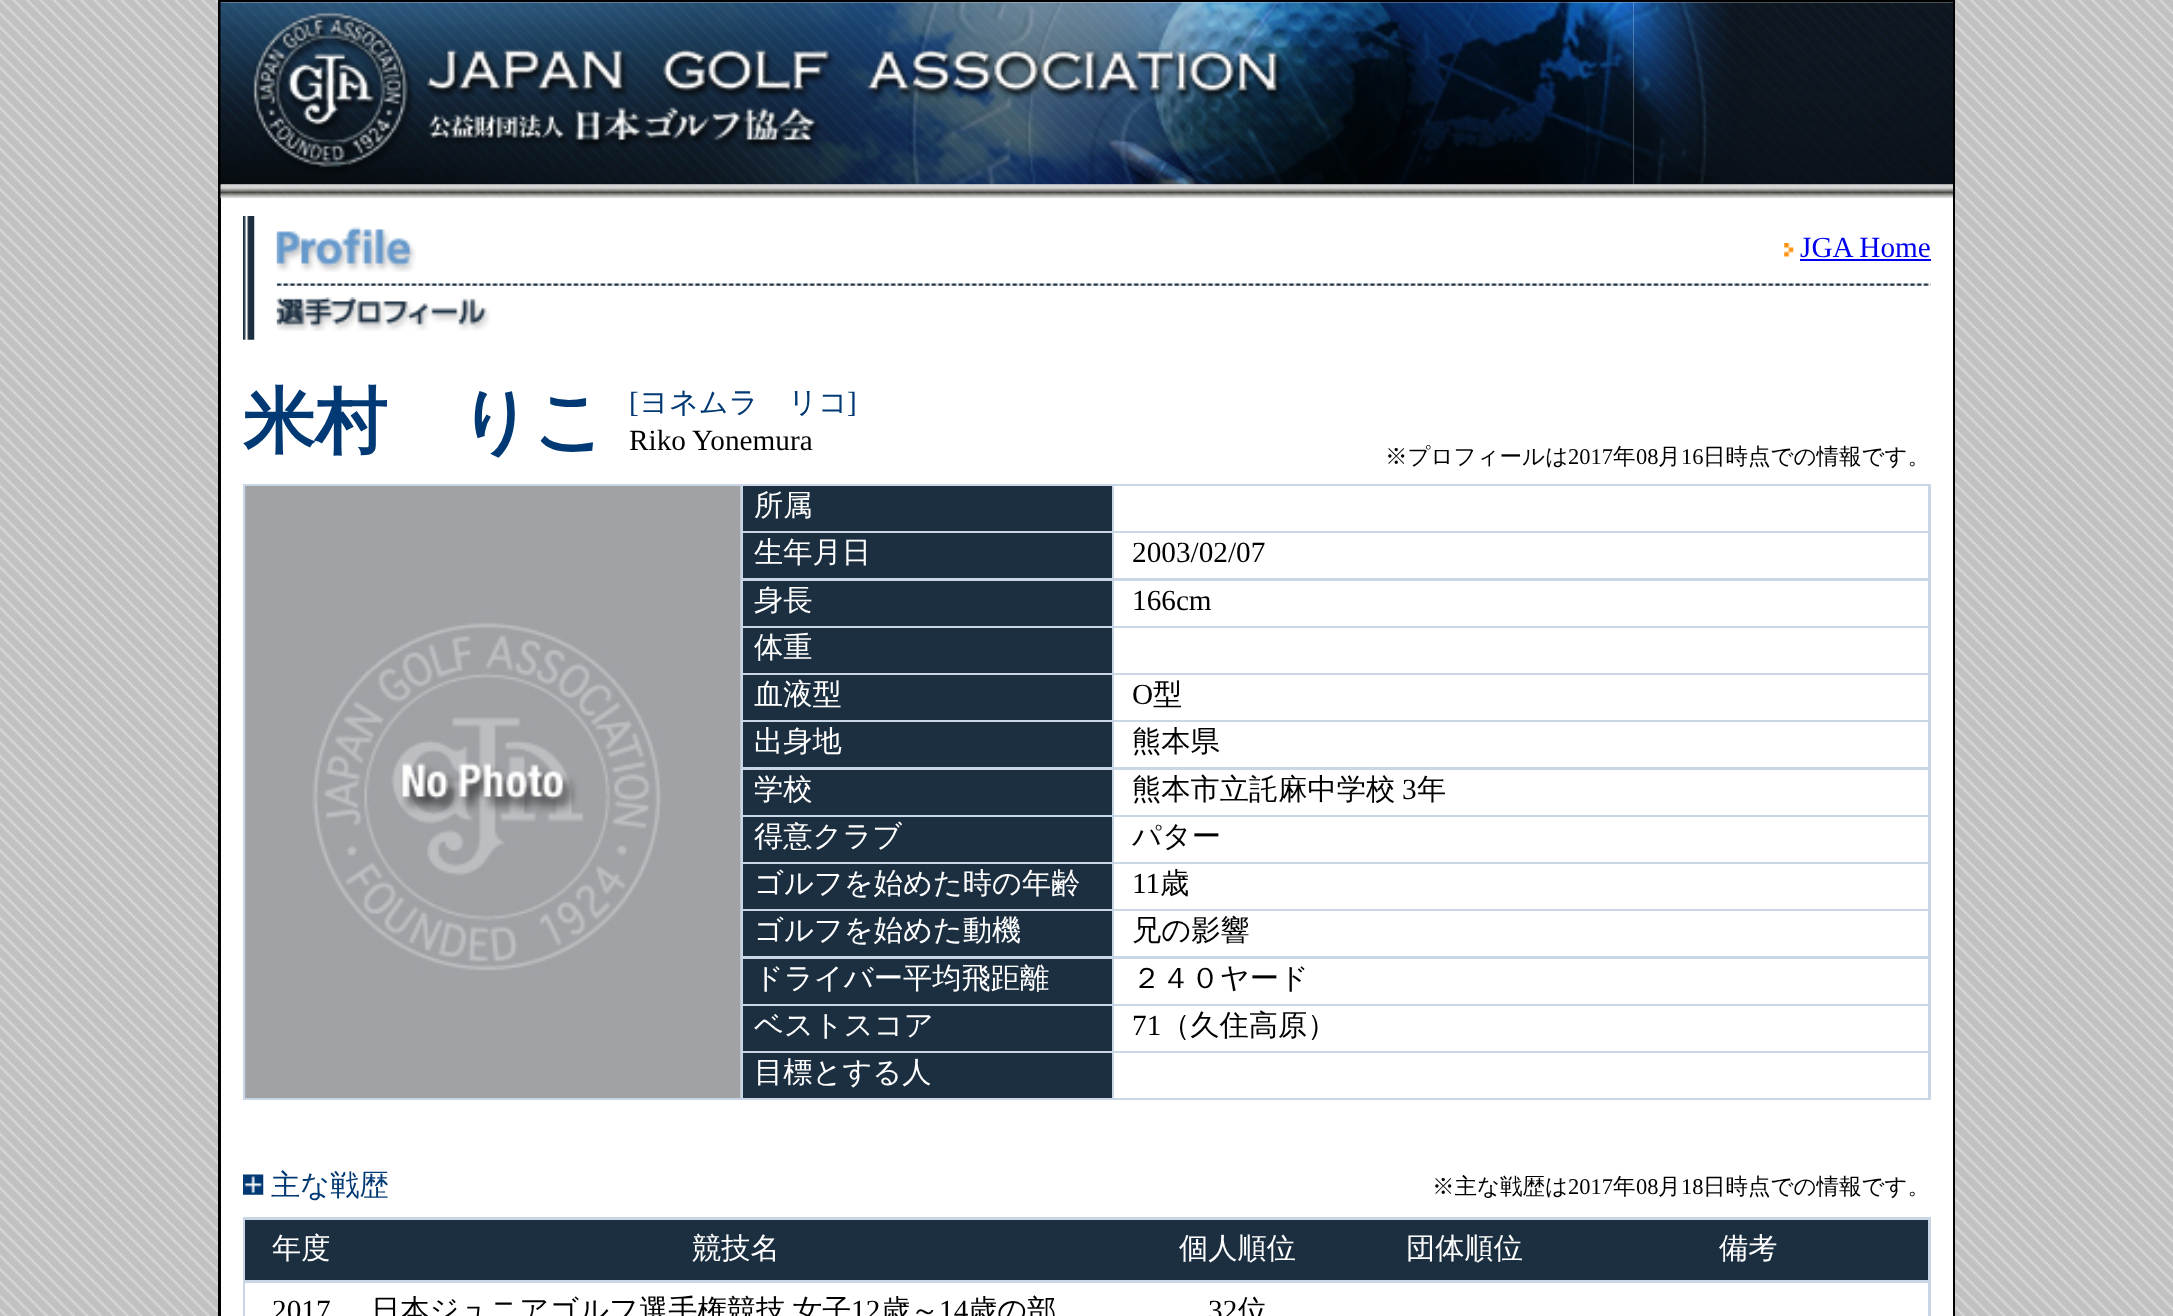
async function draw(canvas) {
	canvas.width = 2173;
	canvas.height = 1316;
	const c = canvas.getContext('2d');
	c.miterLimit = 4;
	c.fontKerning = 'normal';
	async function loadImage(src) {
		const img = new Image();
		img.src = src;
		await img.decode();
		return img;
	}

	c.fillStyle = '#fff';
	c.fillRect(0, 0, 2173, 1316);
	c.drawImage(await loadImage('img1.png'), 0, 0, 2173, 1316);
	c.fillStyle = '#000';
	c.fillRect(218, 0, 1737, 1316);
	c.fillStyle = '#fff';
	c.fillRect(221, 2, 1732, 1314);
	c.drawImage(await loadImage('img2.png'), 220, 2, 1414, 183);
	c.drawImage(await loadImage('img3.png'), 1633, 2, 320, 183);
	c.drawImage(await loadImage('img4.png'), 220, 184, 1733, 14);
	c.drawImage(await loadImage('img5.png'), 243, 216, 12, 124);
	c.drawImage(await loadImage('img6.png'), 276, 227, 140, 45);
	c.drawImage(await loadImage('img7.png'), 1784, 243, 10, 14);
	c.font = '29.25px Liberation Serif';
	c.fillStyle = '#00e';
	c.fillText('JGA Home', 1800, 257);
	c.fillRect(1800, 259, 131, 2);
	c.drawImage(await loadImage('img8.png'), 276, 283, 1655, 3);
	c.drawImage(await loadImage('img9.png'), 276, 297, 215, 34);
	c.font = 'bold 72px WenQuanYi Zen Hei';
	c.fillStyle = '#003973';
	c.fillText('米村　りこ', 243, 446);
	c.font = '29.25px Liberation Serif';
	c.fillText('[', 629, 412);
	c.font = '500 29.25px WenQuanYi Zen Hei';
	c.fillText('ヨネムラ　リコ', 639, 412);
	c.font = '29.25px Liberation Serif';
	c.fillText(']', 847, 412);
	c.fillStyle = '#000';
	c.fillText('Riko Yonemura', 629, 450);
	c.font = '500 22.5px WenQuanYi Zen Hei';
	c.fillText('※プロフィールは', 1385, 464);
	c.font = '22.5px Liberation Serif';
	c.fillText('2017', 1568, 464);
	c.font = '500 22.5px WenQuanYi Zen Hei';
	c.fillText('年', 1613, 464);
	c.font = '22.5px Liberation Serif';
	c.fillText('08', 1636, 464);
	c.font = '500 22.5px WenQuanYi Zen Hei';
	c.fillText('月', 1658, 464);
	c.font = '22.5px Liberation Serif';
	c.fillText('16', 1681, 464);
	c.font = '500 22.5px WenQuanYi Zen Hei';
	c.fillText('日時点での情報です。', 1703, 464);
	c.fillStyle = '#c9d6e5';
	c.fillRect(243, 484, 1688, 616);
	c.drawImage(await loadImage('img10.png'), 245, 486, 496, 612);
	c.drawImage(await loadImage('img11.png'), 245, 486, 496, 612);
	c.fillStyle = '#1c2f41';
	c.fillRect(743, 486, 369, 45);
	c.font = '500 29.25px WenQuanYi Zen Hei';
	c.fillStyle = '#fff';
	c.fillText('所属', 754, 515);
	c.fillRect(1114, 486, 814, 45);
	c.fillStyle = '#1c2f41';
	c.fillRect(743, 533, 369, 45);
	c.fillStyle = '#fff';
	c.fillText('生年月日', 754, 562);
	c.fillRect(1114, 533, 814, 45);
	c.font = '29.25px Liberation Serif';
	c.fillStyle = '#000';
	c.fillText('2003/02/07', 1132, 562);
	c.fillStyle = '#1c2f41';
	c.fillRect(743, 581, 369, 45);
	c.font = '500 29.25px WenQuanYi Zen Hei';
	c.fillStyle = '#fff';
	c.fillText('身長', 754, 610);
	c.fillRect(1114, 581, 814, 45);
	c.font = '29.25px Liberation Serif';
	c.fillStyle = '#000';
	c.fillText('166cm', 1132, 610);
	c.fillStyle = '#1c2f41';
	c.fillRect(743, 628, 369, 45);
	c.font = '500 29.25px WenQuanYi Zen Hei';
	c.fillStyle = '#fff';
	c.fillText('体重', 754, 657);
	c.fillRect(1114, 628, 814, 45);
	c.fillStyle = '#1c2f41';
	c.fillRect(743, 675, 369, 45);
	c.fillStyle = '#fff';
	c.fillText('血液型', 754, 704);
	c.fillRect(1114, 675, 814, 45);
	c.font = '29.25px Liberation Serif';
	c.fillStyle = '#000';
	c.fillText('O', 1132, 704);
	c.font = '500 29.25px WenQuanYi Zen Hei';
	c.fillText('型', 1153, 704);
	c.fillStyle = '#1c2f41';
	c.fillRect(743, 722, 369, 45);
	c.fillStyle = '#fff';
	c.fillText('出身地', 754, 751);
	c.fillRect(1114, 722, 814, 45);
	c.fillStyle = '#000';
	c.fillText('熊本県', 1132, 751);
	c.fillStyle = '#1c2f41';
	c.fillRect(743, 770, 369, 45);
	c.fillStyle = '#fff';
	c.fillText('学校', 754, 799);
	c.fillRect(1114, 770, 814, 45);
	c.fillStyle = '#000';
	c.fillText('熊本市立託麻中学校', 1132, 799);
	c.font = '29.25px Liberation Serif';
	c.fillText('3', 1402, 799);
	c.font = '500 29.25px WenQuanYi Zen Hei';
	c.fillText('年', 1417, 799);
	c.fillStyle = '#1c2f41';
	c.fillRect(743, 817, 369, 45);
	c.fillStyle = '#fff';
	c.fillText('得意クラブ', 754, 846);
	c.fillRect(1114, 817, 814, 45);
	c.fillStyle = '#000';
	c.fillText('パター', 1132, 846);
	c.fillStyle = '#1c2f41';
	c.fillRect(743, 864, 369, 45);
	c.fillStyle = '#fff';
	c.fillText('ゴルフを始めた時の年齢', 754, 893);
	c.fillRect(1114, 864, 814, 45);
	c.font = '29.25px Liberation Serif';
	c.fillStyle = '#000';
	c.fillText('11', 1132, 893);
	c.font = '500 29.25px WenQuanYi Zen Hei';
	c.fillText('歳', 1160, 893);
	c.fillStyle = '#1c2f41';
	c.fillRect(743, 911, 369, 45);
	c.fillStyle = '#fff';
	c.fillText('ゴルフを始めた動機', 754, 940);
	c.fillRect(1114, 911, 814, 45);
	c.fillStyle = '#000';
	c.fillText('兄の影響', 1132, 940);
	c.fillStyle = '#1c2f41';
	c.fillRect(743, 959, 369, 45);
	c.fillStyle = '#fff';
	c.fillText('ドライバー平均飛距離', 754, 988);
	c.fillRect(1114, 959, 814, 45);
	c.fillStyle = '#000';
	c.fillText('２４０ヤード', 1132, 988);
	c.fillStyle = '#1c2f41';
	c.fillRect(743, 1006, 369, 45);
	c.fillStyle = '#fff';
	c.fillText('ベストスコア', 754, 1035);
	c.fillRect(1114, 1006, 814, 45);
	c.font = '29.25px Liberation Serif';
	c.fillStyle = '#000';
	c.fillText('71', 1132, 1035);
	c.font = '500 29.25px WenQuanYi Zen Hei';
	c.fillText('（久住高原）', 1161, 1035);
	c.fillStyle = '#1c2f41';
	c.fillRect(743, 1053, 369, 45);
	c.fillStyle = '#fff';
	c.fillText('目標とする人', 754, 1082);
	c.fillRect(1114, 1053, 814, 45);
	c.drawImage(await loadImage('img12.png'), 243, 1174, 21, 21);
	c.fillStyle = '#003973';
	c.fillText('主な戦歴', 271, 1195);
	c.font = '500 22.5px WenQuanYi Zen Hei';
	c.fillStyle = '#000';
	c.fillText('※主な戦歴は', 1432, 1194);
	c.font = '22.5px Liberation Serif';
	c.fillText('2017', 1568, 1194);
	c.font = '500 22.5px WenQuanYi Zen Hei';
	c.fillText('年', 1613, 1194);
	c.font = '22.5px Liberation Serif';
	c.fillText('08', 1636, 1194);
	c.font = '500 22.5px WenQuanYi Zen Hei';
	c.fillText('月', 1658, 1194);
	c.font = '22.5px Liberation Serif';
	c.fillText('18', 1681, 1194);
	c.font = '500 22.5px WenQuanYi Zen Hei';
	c.fillText('日時点での情報です。', 1703, 1194);
	c.fillStyle = '#c9d6e5';
	c.fillRect(243, 1217, 1688, 99);
	c.fillStyle = '#1c2f41';
	c.fillRect(245, 1220, 1683, 60);
	c.font = '500 29.25px WenQuanYi Zen Hei';
	c.fillStyle = '#fff';
	for (const [text, x, y] of [
		['年度', 272, 1258],
		['競技名', 692, 1258],
		['個人順位', 1179, 1258],
		['団体順位', 1406, 1258],
		['備考', 1719, 1258],
	]) {
		c.fillText(text, x, y);
	}
	c.fillRect(245, 1283, 1683, 33);
	c.font = '29.25px Liberation Serif';
	c.fillStyle = '#000';
	c.fillText('2017', 272, 1320);
	c.wordSpacing = '-1px';
	c.font = '500 29.25px WenQuanYi Zen Hei';
	c.fillText('日本ジュニアゴルフ選手権競技 女子', 371, 1320);
	c.wordSpacing = '0px';
	c.font = '29.25px Liberation Serif';
	c.fillText('12', 851, 1320);
	c.font = '500 29.25px WenQuanYi Zen Hei';
	c.fillText('歳～', 881, 1320);
	c.font = '29.25px Liberation Serif';
	c.fillText('14', 939, 1320);
	c.font = '500 29.25px WenQuanYi Zen Hei';
	c.fillText('歳の部', 968, 1320);
	c.font = '29.25px Liberation Serif';
	c.fillText('32', 1208, 1320);
	c.font = '500 29.25px WenQuanYi Zen Hei';
	c.fillText('位', 1238, 1320);
}

draw(document.querySelector('canvas'));
